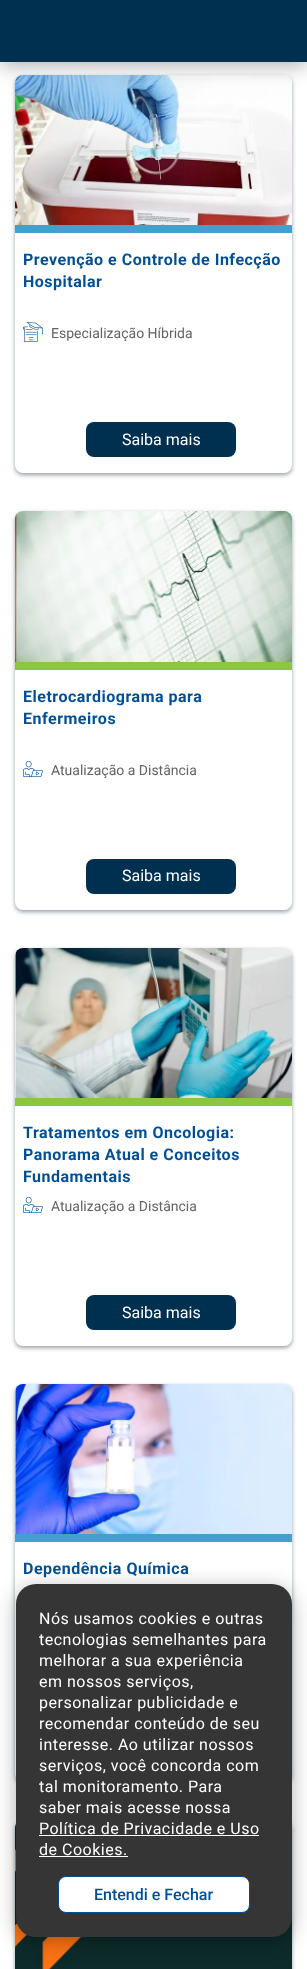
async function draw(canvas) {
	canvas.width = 307;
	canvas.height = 1969;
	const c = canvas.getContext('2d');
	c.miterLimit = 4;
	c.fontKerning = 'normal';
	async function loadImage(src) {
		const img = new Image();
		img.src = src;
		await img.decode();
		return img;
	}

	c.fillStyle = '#fff';
	c.fillRect(0, 0, 307, 1969);
	c.fillStyle = '#12243670';
	c.filter = 'blur(2px)';
	c.beginPath();
	c.roundRect(15, 77, 277, 398, 8);
	c.fill();
	c.filter = 'none';
	c.fillStyle = '#fff';
	c.beginPath();
	c.roundRect(15, 75, 277, 398, 8);
	c.fill();
	c.drawImage(await loadImage('img1.png'), 15, 75, 277, 150);
	c.fillStyle = '#0000004d';
	c.filter = 'blur(10px)';
	c.beginPath();
	c.rect(0, 4, 307, 62);
	c.fill();
	c.filter = 'none';
	c.fillStyle = '#003050';
	c.fillRect(0, 0, 307, 62);
	c.fillStyle = '#42a1cc';
	c.fillRect(15, 225, 277, 8);
	c.letterSpacing = '0.5px';
	c.font = 'bold 16px Roboto';
	c.fillStyle = '#004f92';
	c.fillText('Prevenção e Controle de Infecção', 23, 265);
	c.fillText('Hospitalar', 23, 287);
	c.drawImage(await loadImage('img2.png'), 23, 322, 20, 20);
	c.letterSpacing = '0px';
	c.font = '14px Roboto';
	c.fillStyle = '#626466';
	c.fillText('Especialização Híbrida', 51, 338);
	c.fillStyle = '#003050';
	c.beginPath();
	c.roundRect(86, 422, 150, 35, 8);
	c.fill();
	c.font = '16px Roboto';
	c.fillStyle = '#fff';
	c.fillText('Saiba mais', 122, 445);
	c.fillStyle = '#12243670';
	c.filter = 'blur(2px)';
	c.beginPath();
	c.roundRect(15, 513, 277, 399, 8);
	c.fill();
	c.filter = 'none';
	c.fillStyle = '#fff';
	c.beginPath();
	c.roundRect(15, 511, 277, 399, 8);
	c.fill();
	c.drawImage(await loadImage('img3.png'), 15, 511, 277, 151);
	c.fillStyle = '#8cc53f';
	c.fillRect(15, 662, 277, 8);
	c.letterSpacing = '0.5px';
	c.font = 'bold 16px Roboto';
	c.fillStyle = '#004f92';
	c.fillText('Eletrocardiograma para', 23, 702);
	c.fillText('Enfermeiros', 23, 724);
	c.drawImage(await loadImage('img4.png'), 23, 760, 20, 17);
	c.letterSpacing = '0px';
	c.font = '14px Roboto';
	c.fillStyle = '#626466';
	c.fillText('Atualização a Distância', 51, 775);
	c.fillStyle = '#003050';
	c.beginPath();
	c.roundRect(86, 859, 150, 35, 8);
	c.fill();
	c.font = '16px Roboto';
	c.fillStyle = '#fff';
	c.fillText('Saiba mais', 122, 881);
	c.fillStyle = '#12243670';
	c.filter = 'blur(2px)';
	c.beginPath();
	c.roundRect(15, 950, 277, 398, 8);
	c.fill();
	c.filter = 'none';
	c.fillStyle = '#fff';
	c.beginPath();
	c.roundRect(15, 948, 277, 398, 8);
	c.fill();
	c.drawImage(await loadImage('img5.png'), 15, 948, 277, 150);
	c.fillStyle = '#8cc53f';
	c.fillRect(15, 1098, 277, 8);
	c.letterSpacing = '0.5px';
	c.font = 'bold 16px Roboto';
	c.fillStyle = '#004f92';
	for (const [text, x, y] of [
		['Tratamentos em Oncologia:', 23, 1138],
		['Panorama Atual e Conceitos', 23, 1160],
		['Fundamentais', 23, 1182],
	]) {
		c.fillText(text, x, y);
	}
	c.drawImage(await loadImage('img4.png'), 23, 1196, 20, 17);
	c.letterSpacing = '0px';
	c.font = '14px Roboto';
	c.fillStyle = '#626466';
	c.fillText('Atualização a Distância', 51, 1211);
	c.fillStyle = '#003050';
	c.beginPath();
	c.roundRect(86, 1295, 150, 35, 8);
	c.fill();
	c.font = '16px Roboto';
	c.fillStyle = '#fff';
	c.fillText('Saiba mais', 122, 1318);
	c.fillStyle = '#12243670';
	c.filter = 'blur(2px)';
	c.beginPath();
	c.roundRect(15, 1386, 277, 398, 8);
	c.fill();
	c.filter = 'none';
	c.fillStyle = '#fff';
	c.beginPath();
	c.roundRect(15, 1384, 277, 398, 8);
	c.fill();
	c.drawImage(await loadImage('img6.png'), 15, 1384, 277, 150);
	c.fillStyle = '#42a1cc';
	c.fillRect(15, 1534, 277, 8);
	c.letterSpacing = '0.5px';
	c.font = 'bold 16px Roboto';
	c.fillStyle = '#004f92';
	c.fillText('Dependência Química', 23, 1574);
	c.fillStyle = '#12243670';
	c.filter = 'blur(2px)';
	c.beginPath();
	c.roundRect(15, 1822, 277, 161, 8);
	c.fill();
	c.filter = 'none';
	c.drawImage(await loadImage('img7.png'), 15, 1824, 277, 145);
	c.fillStyle = '#0000004d';
	c.filter = 'blur(10px)';
	c.beginPath();
	c.roundRect(16, 1588, 276, 353, 20);
	c.fill();
	c.filter = 'none';
	c.fillStyle = '#353535';
	c.beginPath();
	c.roundRect(16, 1584, 276, 353, 20);
	c.fill();
	c.font = '16px Roboto';
	c.fillStyle = '#fff';
	for (const [text, x, y] of [
		['Nós usamos cookies e outras', 39, 1624],
		['tecnologias semelhantes para', 39, 1645],
		['melhorar a sua experiência', 39, 1666],
		['em nossos serviços,', 39, 1687],
		['personalizar publicidade e', 39, 1708],
		['recomendar conteúdo de seu', 39, 1729],
		['interesse. Ao utilizar nossos', 39, 1750],
		['serviços, você concorda com', 39, 1771],
		['tal monitoramento. Para', 39, 1792],
		['saber mais acesse nossa', 39, 1813],
		['Política de Privacidade e Uso', 39, 1834],
	]) {
		c.fillText(text, x, y);
	}
	c.fillRect(39, 1835, 220, 1);
	c.fillText('de Cookies.', 39, 1855);
	c.fillRect(39, 1856, 89, 1);
	c.beginPath();
	c.roundRect(58.5, 1876.5, 191, 36, 7.5);
	c.fill();
	c.strokeStyle = '#004f92';
	c.stroke();
	c.letterSpacing = '0px';
	c.font = '500 16px Roboto';
	c.fillStyle = '#004f92';
	c.fillText('Entendi e Fechar', 94, 1900);
}

draw(document.querySelector('canvas'));
